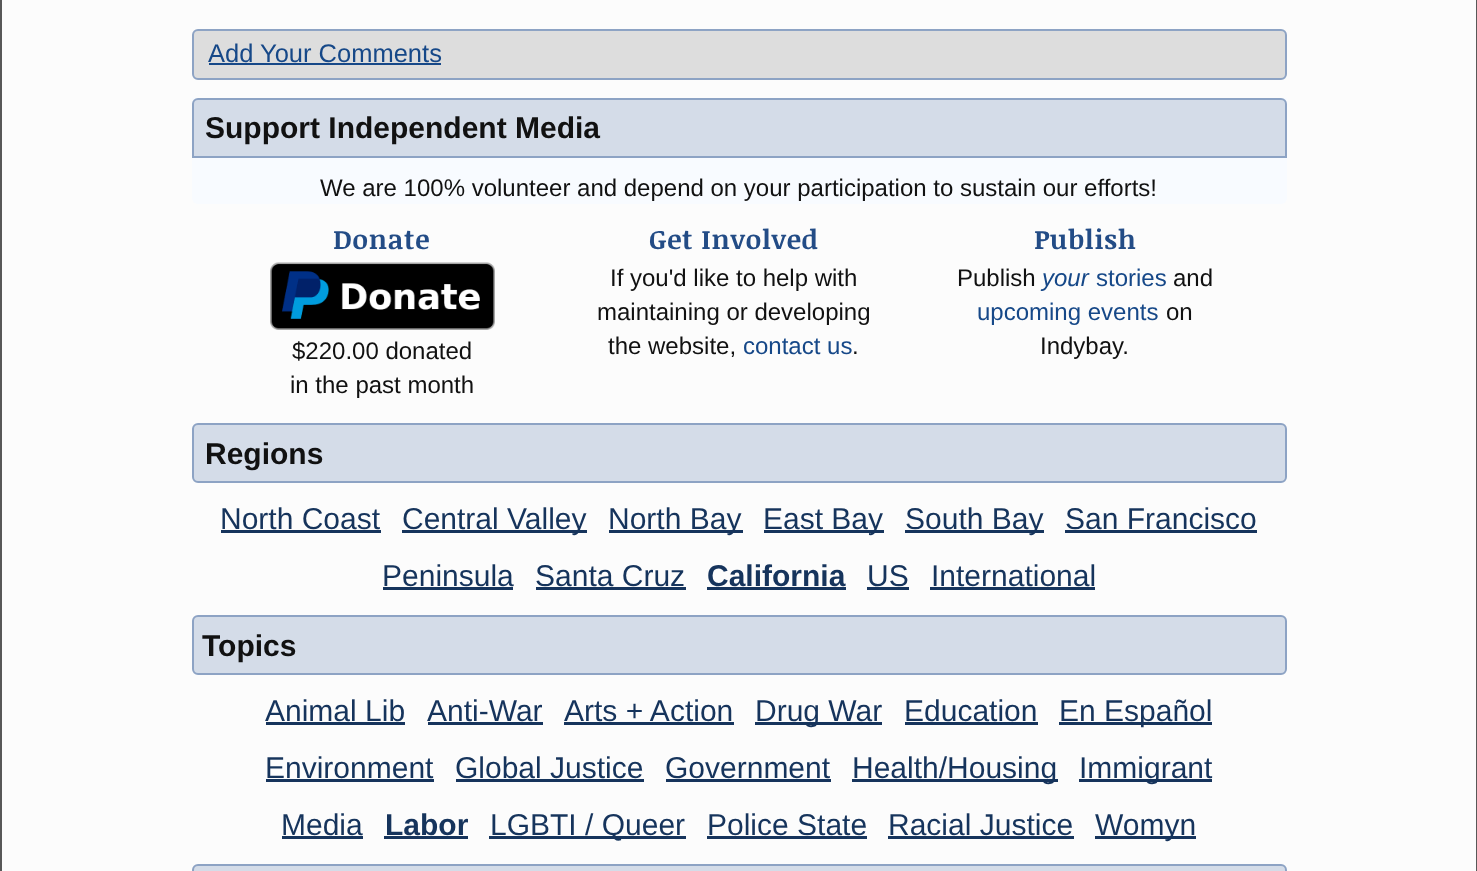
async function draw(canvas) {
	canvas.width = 1477;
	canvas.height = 871;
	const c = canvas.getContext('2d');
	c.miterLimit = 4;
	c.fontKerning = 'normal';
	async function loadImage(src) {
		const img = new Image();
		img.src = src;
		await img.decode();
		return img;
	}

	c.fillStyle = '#fcfcfc';
	c.fillRect(0, 0, 1477, 871);
	c.fillStyle = '#585858';
	c.fillRect(1476, 0, 1, 871);
	c.fillRect(0, 0, 2, 871);
	c.fillStyle = '#ddd';
	c.beginPath();
	c.roundRect(193, 30, 1093, 49, 5);
	c.fill();
	c.strokeStyle = '#8da3c4';
	c.lineWidth = 2;
	c.stroke();
	c.font = '25.5px Liberation Sans';
	c.fillStyle = '#164888';
	c.fillText('Add Your Comments', 208, 62);
	c.fillRect(209, 63, 232, 2);
	c.fillStyle = '#f8fbff';
	c.beginPath();
	c.roundRect(192, 98, 1095, 106, [0, 0, 6, 6]);
	c.fill();
	c.fillStyle = '#d4dce8';
	c.beginPath();
	c.roundRect(193, 99, 1093, 58, [5, 5, 0, 0]);
	c.fill();
	c.stroke();
	c.font = 'bold 30px Liberation Sans';
	c.fillStyle = '#111';
	c.fillText('Support Independent Media', 205, 138);
	c.font = '24px Liberation Sans';
	c.fillText('We are 100% volunteer and depend on your participation to sustain our efforts!', 320, 196);
	c.letterSpacing = '0.75px';
	c.font = 'bold 27px Noticia Text';
	c.fillStyle = '#234c86';
	c.fillText('Donate', 333, 249);
	c.drawImage(await loadImage('img1.png'), 270, 262, 225, 68);
	c.letterSpacing = '0px';
	c.font = '24px Liberation Sans';
	c.fillStyle = '#111';
	c.fillText('$220.00 donated', 292, 359);
	c.fillText('in the past month', 290, 393);
	c.letterSpacing = '0.75px';
	c.font = 'bold 27px Noticia Text';
	c.fillStyle = '#234c86';
	c.fillText('Get Involved', 649, 249);
	c.letterSpacing = '0px';
	c.font = '24px Liberation Sans';
	c.fillStyle = '#111';
	for (const [text, x, y] of [
		['If you\'d like to help with', 610, 286],
		['maintaining or developing', 597, 320],
		['the website,', 608, 354],
	]) {
		c.fillText(text, x, y);
	}
	c.fillStyle = '#164888';
	c.fillText('contact us', 743, 354);
	c.fillStyle = '#111';
	c.fillText('.', 852, 354);
	c.letterSpacing = '0.75px';
	c.font = 'bold 27px Noticia Text';
	c.fillStyle = '#234c86';
	c.fillText('Publish', 1034, 249);
	c.letterSpacing = '0px';
	c.font = '24px Liberation Sans';
	c.fillStyle = '#111';
	c.fillText('Publish', 957, 286);
	c.font = 'italic 24px Liberation Sans';
	c.fillStyle = '#164888';
	c.fillText('your', 1042, 286);
	c.font = '24px Liberation Sans';
	c.fillText('stories', 1096, 286);
	c.fillStyle = '#111';
	c.fillText('and', 1173, 286);
	c.fillStyle = '#164888';
	c.fillText('upcoming events', 977, 320);
	c.fillStyle = '#111';
	c.fillText('on', 1166, 320);
	c.fillText('Indybay.', 1040, 354);
	c.fillStyle = '#d4dce8';
	c.beginPath();
	c.roundRect(193, 424, 1093, 58, 5);
	c.fill();
	c.stroke();
	c.font = 'bold 30px Liberation Sans';
	c.fillStyle = '#111';
	c.fillText('Regions', 205, 464);
	c.font = '30px Liberation Sans';
	c.fillStyle = '#16345c';
	c.fillText('North Coast', 220, 529);
	c.fillRect(221, 530, 160, 3);
	c.fillRect(402, 530, 185, 3);
	c.fillText('Central Valley', 402, 529);
	c.fillRect(609, 530, 134, 3);
	c.fillText('North Bay', 608, 529);
	c.fillRect(764, 530, 120, 3);
	c.fillText('East Bay', 763, 529);
	c.fillRect(905, 530, 139, 3);
	c.fillText('South Bay', 905, 529);
	c.fillText('San Francisco', 1065, 529);
	c.fillRect(1065, 530, 192, 3);
	c.fillText('Peninsula', 382, 586);
	c.fillRect(383, 587, 130, 3);
	c.fillText('Santa Cruz', 535, 586);
	c.fillRect(536, 587, 150, 3);
	c.font = 'bold 30px Liberation Sans';
	c.fillText('California', 707, 586);
	c.fillRect(707, 587, 139, 3);
	c.font = '30px Liberation Sans';
	c.fillText('US', 867, 586);
	c.fillRect(867, 587, 42, 3);
	c.fillText('International', 931, 586);
	c.fillRect(930, 587, 165, 3);
	c.fillStyle = '#d4dce8';
	c.beginPath();
	c.roundRect(193, 616, 1093, 58, 5);
	c.fill();
	c.stroke();
	c.font = 'bold 30px Liberation Sans';
	c.fillStyle = '#111';
	c.fillText('Topics', 202, 656);
	c.font = '30px Liberation Sans';
	c.fillStyle = '#16345c';
	c.fillText('Animal Lib', 265, 721);
	c.fillRect(266, 722, 139, 3);
	c.fillText('Anti-War', 427, 721);
	c.fillRect(428, 722, 115, 3);
	c.fillText('Arts + Action', 564, 721);
	c.fillRect(564, 722, 170, 3);
	c.fillRect(755, 722, 127, 3);
	c.fillText('Drug War', 755, 721);
	c.fillText('Education', 904, 721);
	c.fillRect(905, 722, 133, 3);
	c.fillRect(1059, 722, 153, 3);
	c.fillText('En Español', 1059, 721);
	c.fillText('Environment', 265, 778);
	c.fillRect(266, 779, 168, 3);
	c.fillText('Global Justice', 455, 778);
	c.fillRect(456, 779, 188, 3);
	c.fillText('Government', 665, 778);
	c.fillRect(666, 779, 165, 3);
	c.fillRect(852, 779, 206, 3);
	c.fillText('Health/Housing', 852, 778);
	c.fillRect(1079, 779, 133, 3);
	c.fillText('Immigrant', 1079, 778);
	c.fillText('Media', 281, 835);
	c.fillRect(282, 836, 81, 3);
	c.font = 'bold 30px Liberation Sans';
	c.fillText('Labor', 385, 835);
	c.fillRect(384, 836, 84, 3);
	c.fillRect(489, 836, 197, 3);
	c.font = '30px Liberation Sans';
	c.fillText('LGBTI / Queer', 490, 835);
	c.fillText('Police State', 707, 835);
	c.fillRect(707, 836, 160, 3);
	c.fillText('Racial Justice', 888, 835);
	c.fillRect(888, 836, 186, 3);
	c.fillRect(1095, 836, 101, 3);
	c.fillText('Womyn', 1095, 835);
	c.fillStyle = '#d4dce8';
	c.beginPath();
	c.roundRect(193, 865, 1093, 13, 5);
	c.fill();
	c.stroke();
}

draw(document.querySelector('canvas'));
